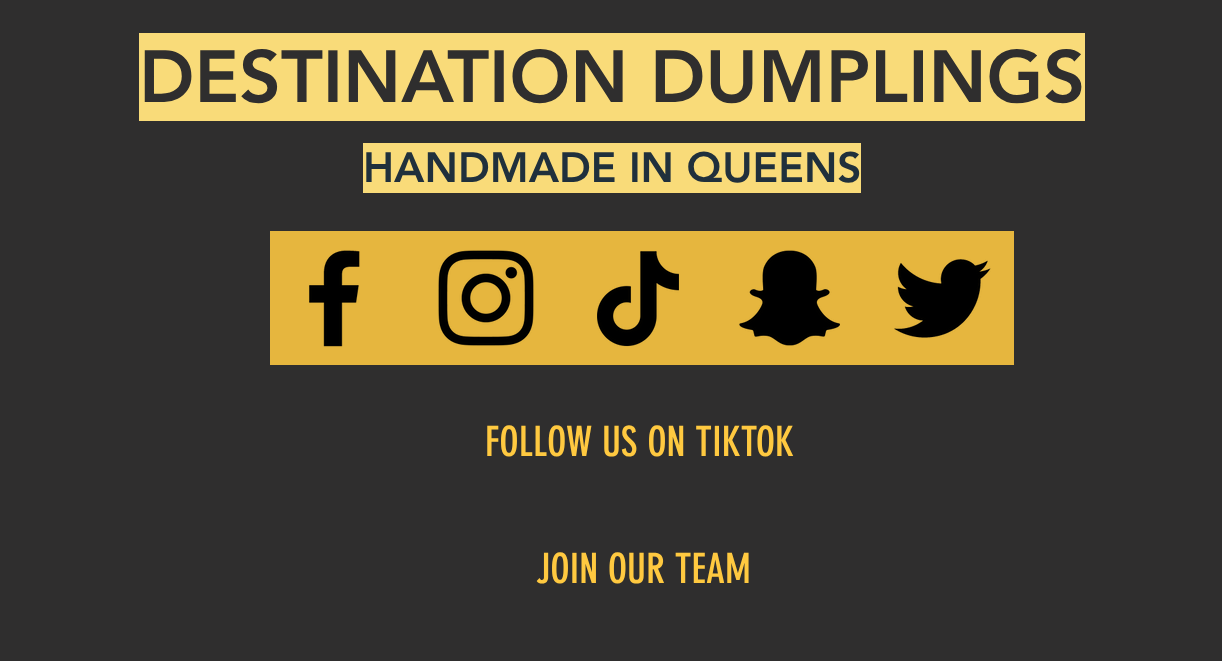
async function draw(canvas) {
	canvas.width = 1222;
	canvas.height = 661;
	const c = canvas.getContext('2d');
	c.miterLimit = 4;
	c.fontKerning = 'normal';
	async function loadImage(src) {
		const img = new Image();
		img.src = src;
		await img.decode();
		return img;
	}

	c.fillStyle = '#2f2e2e';
	c.fillRect(0, 0, 1222, 661);
	c.fillStyle = '#f9db79';
	c.fillRect(139, 33, 946, 88);
	c.font = '900 73px "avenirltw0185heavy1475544"';
	c.fillStyle = '#2f2e2e';
	c.fillText('DESTINATION DUMPLINGS', 139, 102);
	c.fillStyle = '#f9db79';
	c.fillRect(363, 143, 498, 50);
	c.font = '900 42px "avenirltw0185heavy1475544"';
	c.fillStyle = '#20303c';
	c.fillText('HANDMADE IN QUEENS', 363, 182);
	c.fillStyle = '#e6b63e';
	c.fillRect(270, 231, 744, 134);
	c.drawImage(await loadImage('img1.png'), 309, 250, 51, 97);
	c.drawImage(await loadImage('img2.png'), 438, 250, 96, 96);
	c.drawImage(await loadImage('img3.png'), 597, 251, 82, 96);
	c.drawImage(await loadImage('img4.png'), 739, 250, 101, 96);
	c.drawImage(await loadImage('img5.png'), 894, 259, 97, 79);
	c.font = '41px "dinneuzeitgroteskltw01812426"';
	c.fillStyle = '#ffc940';
	c.fillText('FOLLOW US ON TIKTOK', 485, 456);
	c.fillText('JOIN OUR TEAM', 536, 583);
}

draw(document.querySelector('canvas'));
